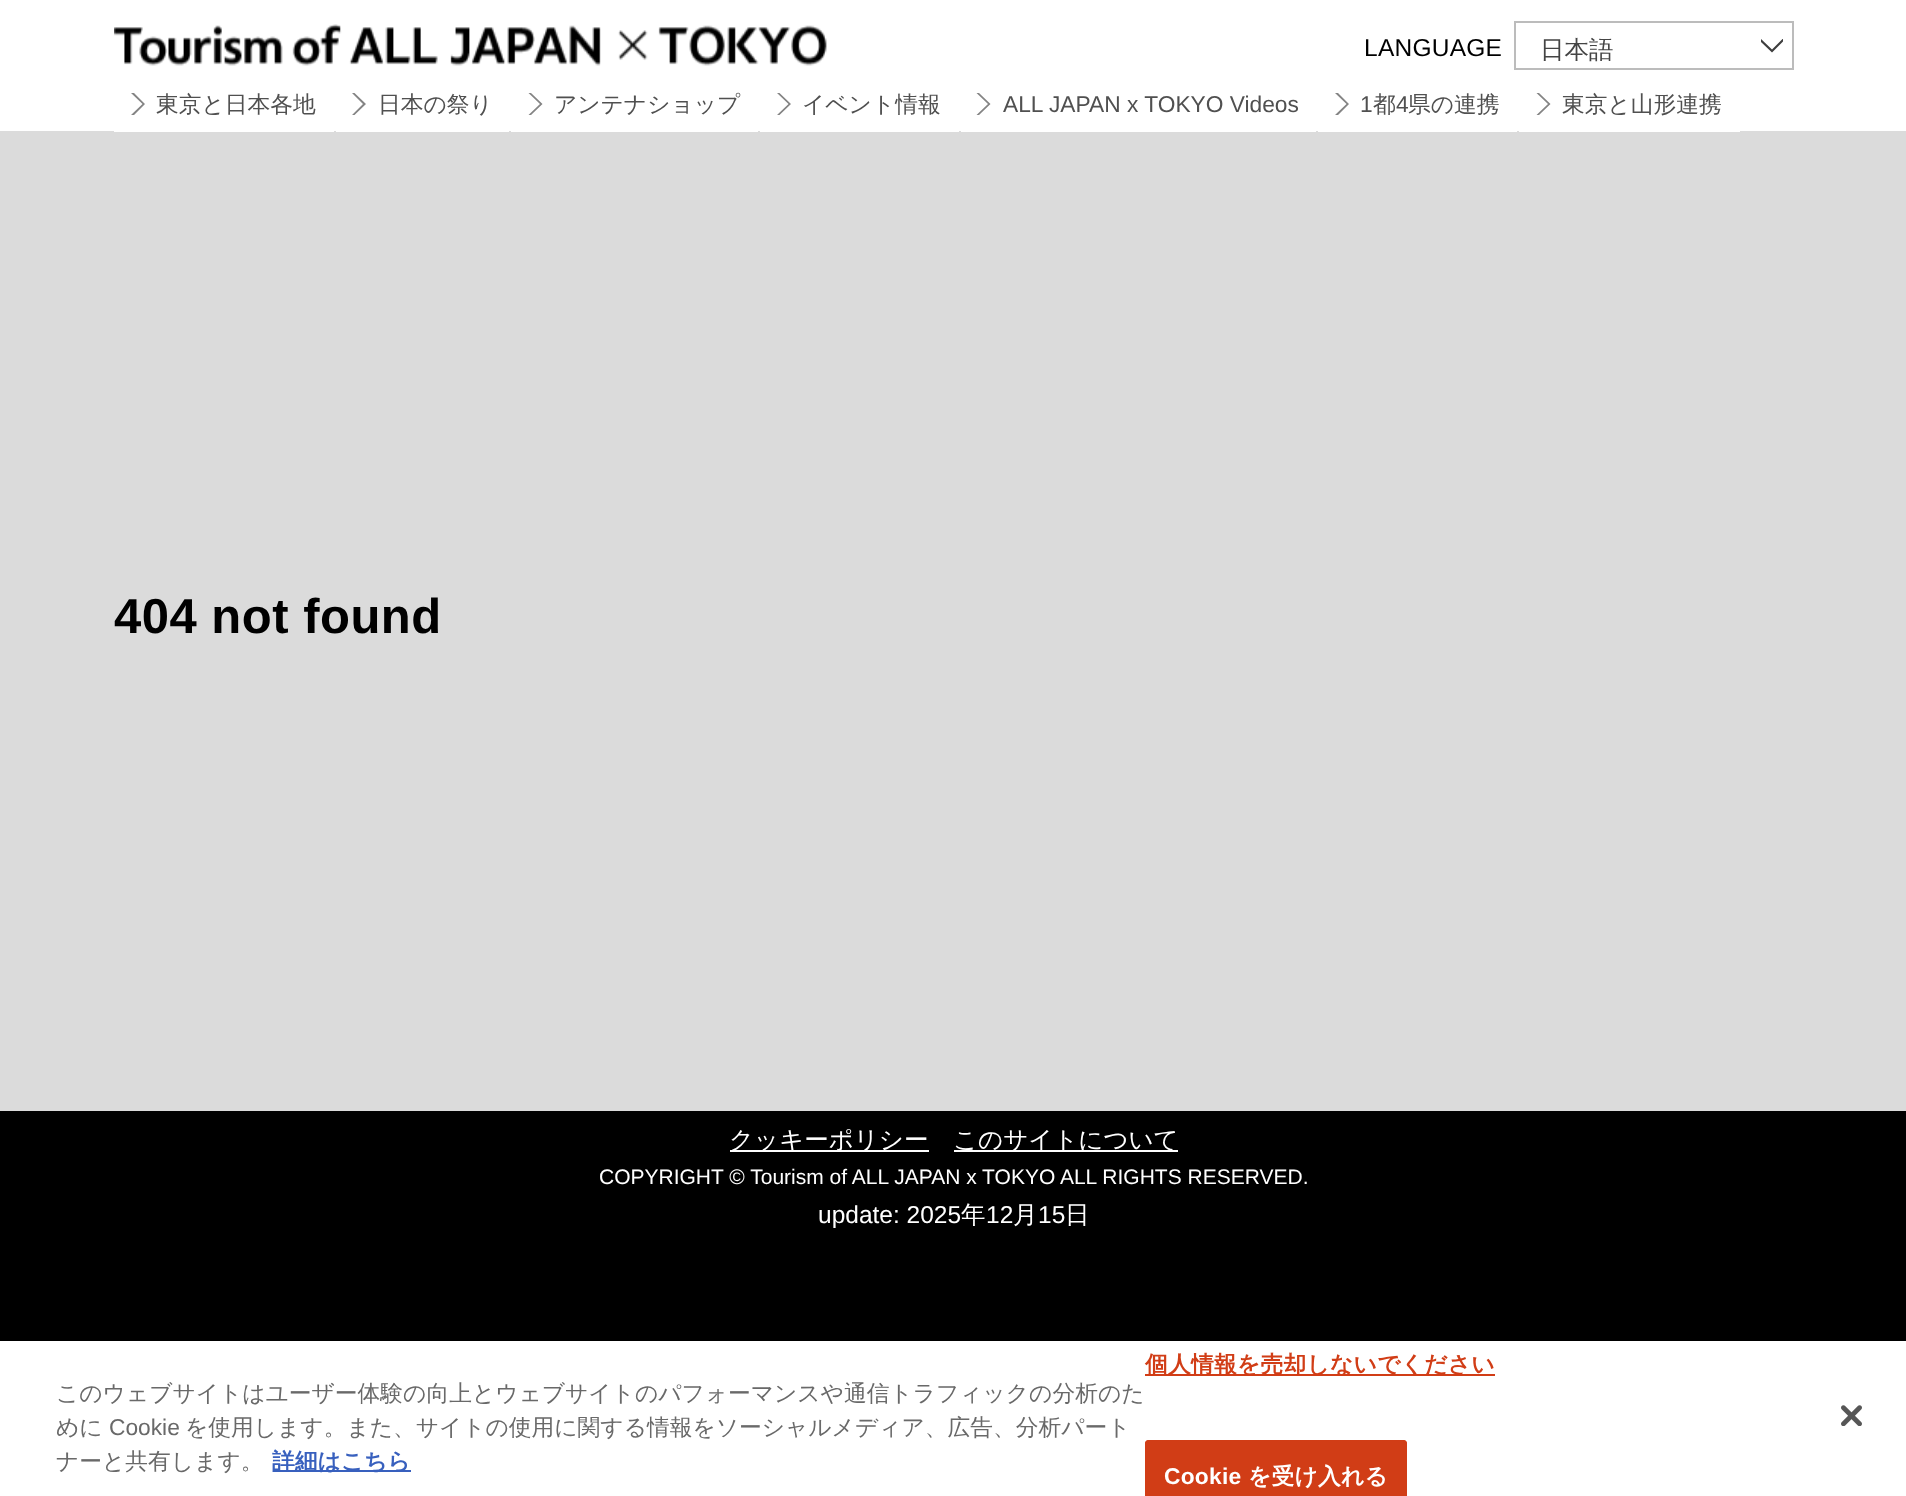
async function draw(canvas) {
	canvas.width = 1906;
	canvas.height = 1496;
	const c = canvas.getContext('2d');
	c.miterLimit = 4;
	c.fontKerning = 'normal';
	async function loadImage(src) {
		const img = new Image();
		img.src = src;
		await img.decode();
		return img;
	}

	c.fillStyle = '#fff';
	c.fillRect(0, 0, 1906, 1496);
	c.drawImage(await loadImage('img1.png'), 114, 24, 713, 42);
	c.letterSpacing = '0.25px';
	c.font = '24.5px Liberation Sans';
	c.fillStyle = '#000';
	c.fillText('LANGUAGE', 1364, 56);
	c.save();
	c.beginPath();
	c.rect(1761, 39, 22, 14);
	c.clip();
	c.fillStyle = '#3e3e3e';
	c.beginPath();
	c.moveTo(1760.5, 38.5);
	c.lineTo(1772, 49.5);
	c.lineTo(1783, 38.5);
	c.lineTo(1783, 41.5);
	c.lineTo(1772, 52.5);
	c.lineTo(1760.5, 41.5);
	c.closePath();
	c.fill();
	c.restore();
	c.strokeStyle = '#bcbcbc';
	c.lineWidth = 2;
	c.strokeRect(1515, 22, 278, 47);
	c.letterSpacing = '0px';
	c.font = '500 24.5px WenQuanYi Zen Hei';
	c.fillStyle = '#444';
	c.fillText('日本語', 1540, 58);
	c.fillStyle = '#dbdbdb';
	c.fillRect(0, 131, 1906, 980);
	c.fillStyle = '#fff';
	c.fillRect(114, 131, 220, 1);
	c.fillStyle = '#848484';
	c.beginPath();
	c.moveTo(131, 115);
	c.lineTo(142.5, 104);
	c.lineTo(131, 93);
	c.lineTo(134, 93);
	c.lineTo(145, 104);
	c.lineTo(134, 115);
	c.closePath();
	c.fill('evenodd');
	c.font = '500 22.75px WenQuanYi Zen Hei';
	c.fillStyle = '#505050';
	c.fillText('東京と日本各地', 156, 112);
	c.fillStyle = '#fff';
	c.fillRect(336, 131, 173, 1);
	c.fillStyle = '#848484';
	c.beginPath();
	c.moveTo(352, 115);
	c.lineTo(363, 104);
	c.lineTo(352, 93);
	c.lineTo(354.5, 93);
	c.lineTo(366, 104);
	c.lineTo(354.5, 115);
	c.closePath();
	c.fill('evenodd');
	c.fillStyle = '#505050';
	c.fillText('日本の祭り', 378, 112);
	c.fillStyle = '#fff';
	c.fillRect(511, 131, 247, 1);
	c.fillStyle = '#848484';
	c.beginPath();
	c.moveTo(528.5, 115);
	c.lineTo(540, 104);
	c.lineTo(528.5, 93);
	c.lineTo(531, 93);
	c.lineTo(542.5, 104);
	c.lineTo(531, 115);
	c.closePath();
	c.fill('evenodd');
	c.fillStyle = '#505050';
	c.fillText('アンテナショップ', 554, 112);
	c.fillStyle = '#fff';
	c.fillRect(760, 131, 199, 1);
	c.fillStyle = '#848484';
	c.beginPath();
	c.moveTo(777, 115);
	c.lineTo(788.5, 104);
	c.lineTo(777, 93);
	c.lineTo(779.5, 93);
	c.lineTo(791, 104);
	c.lineTo(779.5, 115);
	c.closePath();
	c.fill('evenodd');
	c.fillStyle = '#505050';
	c.fillText('イベント情報', 802, 112);
	c.fillStyle = '#fff';
	c.fillRect(961, 131, 355, 1);
	c.fillStyle = '#848484';
	c.beginPath();
	c.moveTo(976.5, 115);
	c.lineTo(988, 104);
	c.lineTo(976.5, 93);
	c.lineTo(979, 93);
	c.lineTo(990.5, 104);
	c.lineTo(979, 115);
	c.closePath();
	c.fill('evenodd');
	c.font = '22.75px Liberation Sans';
	c.fillStyle = '#505050';
	c.fillText('ALL JAPAN x TOKYO Videos', 1003, 112);
	c.fillStyle = '#fff';
	c.fillRect(1318, 131, 199, 1);
	c.fillStyle = '#848484';
	c.beginPath();
	c.moveTo(1335, 115);
	c.lineTo(1346.5, 104);
	c.lineTo(1335, 93);
	c.lineTo(1338, 93);
	c.lineTo(1349, 104);
	c.lineTo(1338, 115);
	c.closePath();
	c.fill('evenodd');
	c.fillStyle = '#505050';
	c.fillText('1', 1360, 112);
	c.font = '500 22.75px WenQuanYi Zen Hei';
	c.fillText('都', 1373, 112);
	c.font = '22.75px Liberation Sans';
	c.fillText('4', 1396, 112);
	c.font = '500 22.75px WenQuanYi Zen Hei';
	c.fillText('県の連携', 1408, 112);
	c.fillStyle = '#fff';
	c.fillRect(1519, 131, 221, 1);
	c.fillStyle = '#848484';
	c.beginPath();
	c.moveTo(1536.5, 115);
	c.lineTo(1548, 104);
	c.lineTo(1536.5, 93);
	c.lineTo(1539, 93);
	c.lineTo(1550.5, 104);
	c.lineTo(1539, 115);
	c.closePath();
	c.fill('evenodd');
	c.fillStyle = '#505050';
	c.fillText('東京と山形連携', 1562, 112);
	c.letterSpacing = '0.5px';
	c.font = 'bold 49px Liberation Sans';
	c.fillStyle = '#000';
	c.fillText('404 not found', 114, 633);
	c.fillRect(0, 1111, 1906, 230);
	c.fillStyle = '#fff';
	c.fillRect(730, 1150, 199, 2);
	c.letterSpacing = '0px';
	c.font = '500 24.5px WenQuanYi Zen Hei';
	c.fillText('クッキーポリシー', 729, 1148);
	c.fillRect(954, 1150, 224, 2);
	c.fillText('このサイトについて', 953, 1148);
	c.font = '21px Liberation Sans';
	c.fillText('COPYRIGHT © Tourism of ALL JAPAN x TOKYO ALL RIGHTS RESERVED.', 599, 1184);
	c.font = '24.5px Liberation Sans';
	c.fillText('update: 2025', 818, 1223);
	c.font = '500 24.5px WenQuanYi Zen Hei';
	c.fillText('年', 961, 1223);
	c.font = '24.5px Liberation Sans';
	c.fillText('12', 986, 1223);
	c.font = '500 24.5px WenQuanYi Zen Hei';
	c.fillText('月', 1013, 1223);
	c.font = '24.5px Liberation Sans';
	c.fillText('15', 1038, 1223);
	c.font = '500 24.5px WenQuanYi Zen Hei';
	c.fillText('日', 1065, 1223);
	c.font = '500 22.75px WenQuanYi Zen Hei';
	c.fillStyle = '#696969';
	c.fillText('このウェブサイトはユーザー体験の向上とウェブサイトのパフォーマンスや通信トラフィックの分析のた', 56, 1401);
	c.fillText('めに', 56, 1435);
	c.font = '22.75px Liberation Sans';
	c.fillText('Cookie', 109, 1435);
	c.font = '500 22.75px WenQuanYi Zen Hei';
	c.fillText('を使用します。また、サイトの使用に関する情報をソーシャルメディア、広告、分析パート', 185, 1435);
	c.fillText('ナーと共有します。', 56, 1469);
	c.fillStyle = '#3860be';
	c.fillRect(273, 1470, 138, 2);
	c.font = 'bold 22.75px WenQuanYi Zen Hei';
	c.fillText('詳細はこちら', 272, 1469);
	c.fillStyle = '#d13d16';
	c.fillRect(1145, 1374, 350, 2);
	c.letterSpacing = '0.25px';
	c.fillText('個人情報を売却しないでください', 1145, 1372);
	c.beginPath();
	c.roundRect(1145, 1440, 262, 56, [4, 4, 0, 0]);
	c.fill();
	c.beginPath();
	c.roundRect(1146, 1441, 260, 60, 3);
	c.strokeStyle = '#d13d16';
	c.stroke();
	c.font = 'bold 22.75px Liberation Sans';
	c.fillStyle = '#fff';
	c.fillText('Cookie', 1164, 1484);
	c.font = 'bold 22.75px WenQuanYi Zen Hei';
	c.fillText('を受け入れる', 1248, 1484);
	c.drawImage(await loadImage('img2.png'), 1841, 1405, 21, 21);
}

draw(document.querySelector('canvas'));
